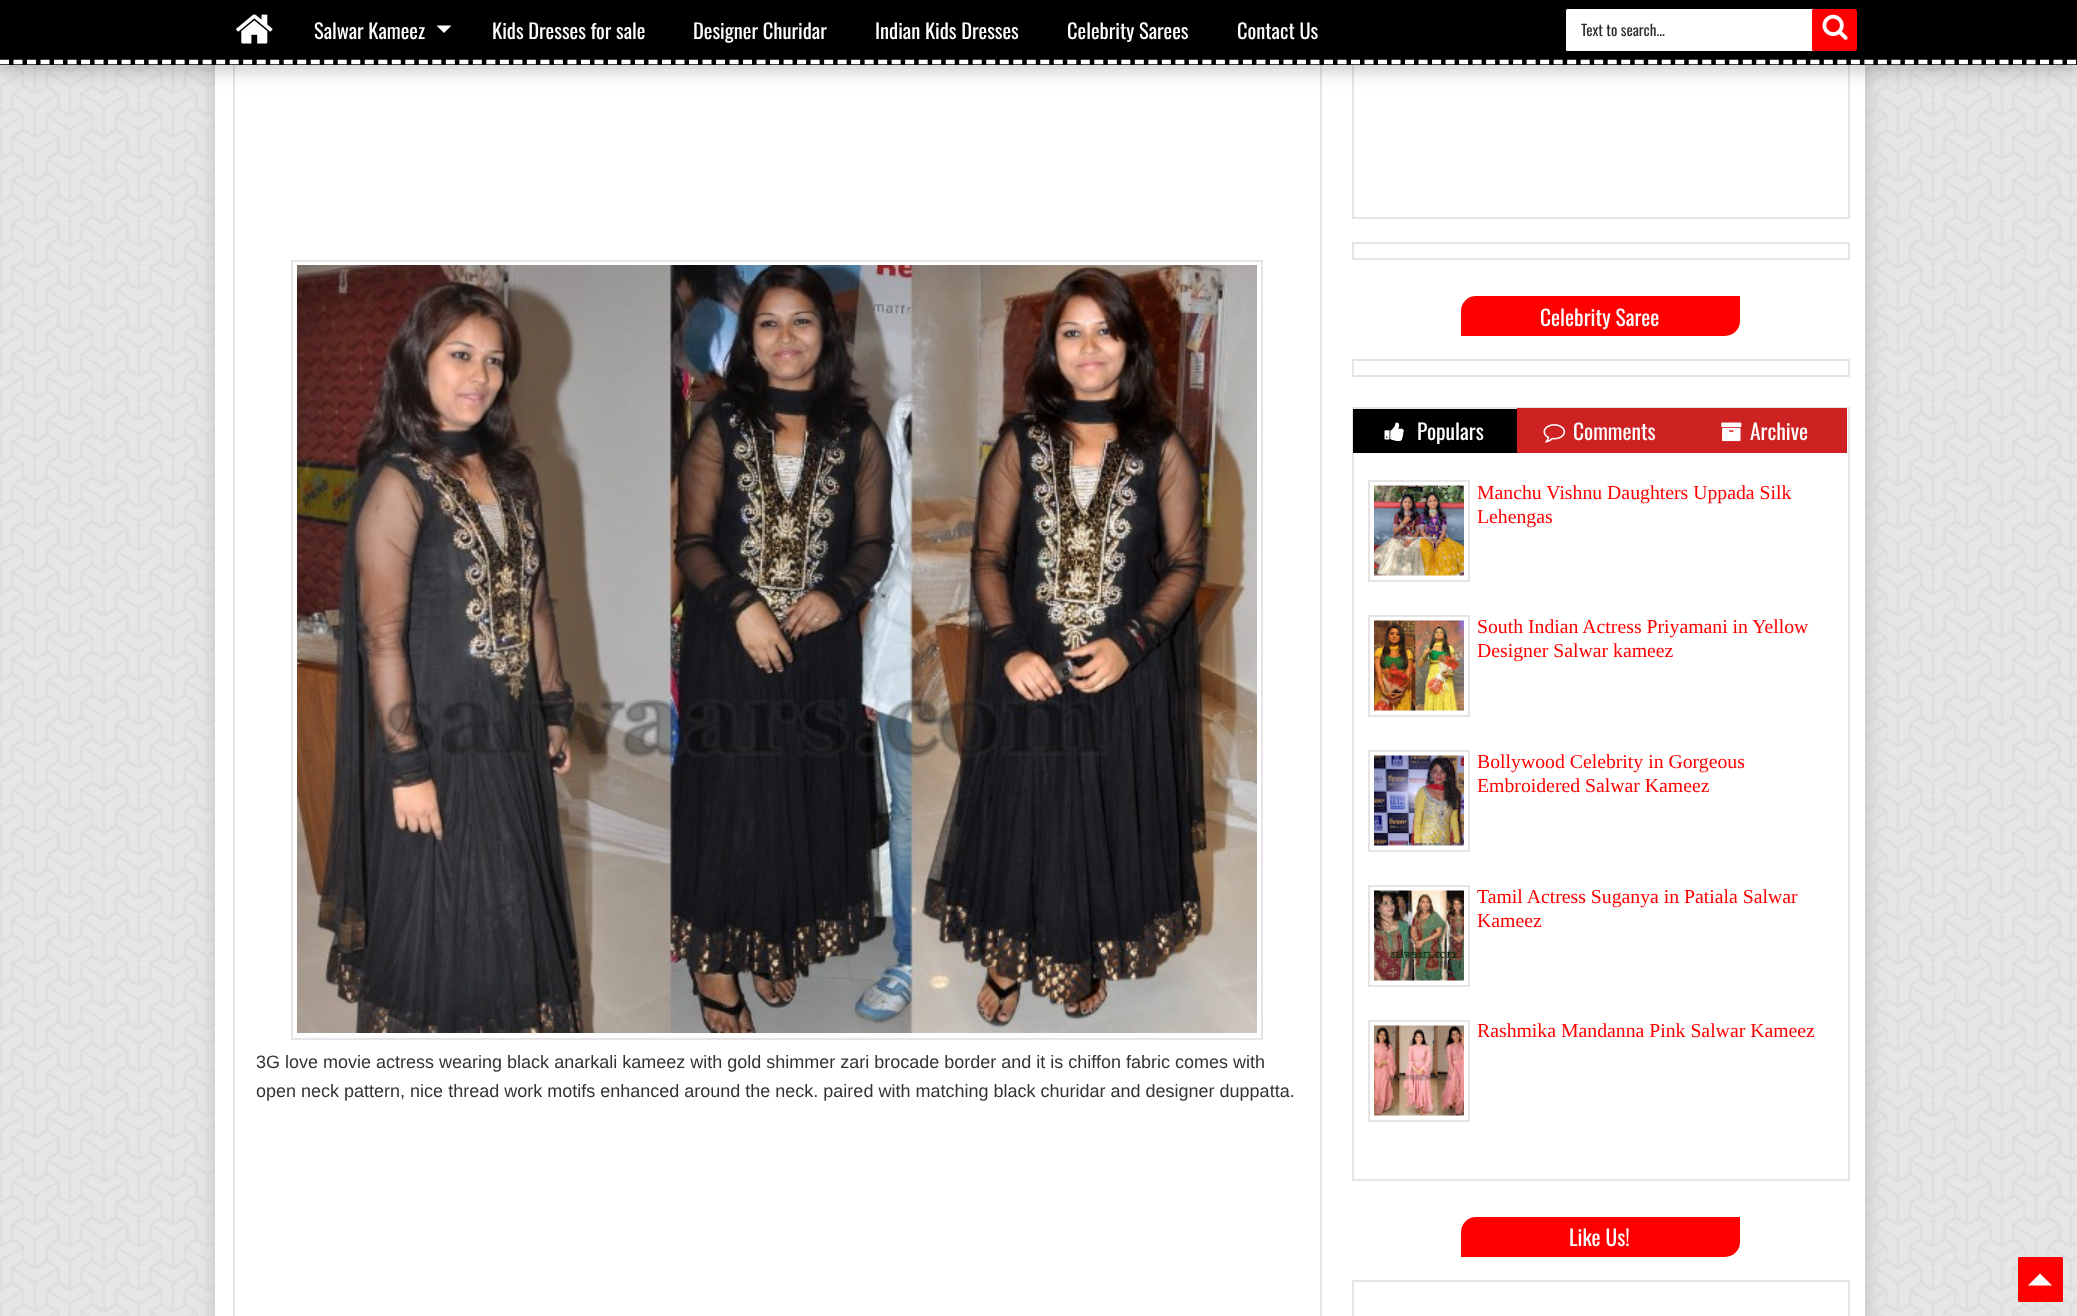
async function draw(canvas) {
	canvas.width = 2077;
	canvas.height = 1316;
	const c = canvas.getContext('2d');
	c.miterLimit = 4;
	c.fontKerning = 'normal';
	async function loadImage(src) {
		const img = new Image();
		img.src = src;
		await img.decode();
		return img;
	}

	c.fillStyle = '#fff';
	c.fillRect(0, 0, 2077, 1316);
	c.drawImage(await loadImage('img1.png'), 0, 65, 2077, 1251);
	c.fillStyle = '#bebebe';
	c.filter = 'blur(9px)';
	c.beginPath();
	c.roundRect(216, -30, 1650, 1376, 3);
	c.fill();
	c.filter = 'none';
	c.fillStyle = '#fff';
	c.fillRect(215, 65, 1650, 1251);
	c.strokeStyle = '#e6e4e4';
	c.lineWidth = 2;
	c.strokeRect(234, -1, 1087, 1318);
	c.strokeRect(1353, -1, 496, 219);
	c.fillStyle = '#00000033';
	c.filter = 'blur(9px)';
	c.beginPath();
	c.rect(2, 9, 2074, 62);
	c.fill();
	c.filter = 'none';
	c.fillStyle = '#000';
	c.fillRect(0, 0, 2077, 65);
	c.beginPath();
	c.moveTo(0, 62);
	c.lineTo(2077.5, 62);
	c.strokeStyle = '#fff';
	c.lineWidth = 4.5;
	c.setLineDash([9, 4.51]);
	c.stroke();
	c.drawImage(await loadImage('img2.png'), 236, 14, 37, 30);
	c.font = '20.5px Oswald';
	c.fillStyle = '#fff';
	c.fillText('Salwar Kameez', 314, 39);
	c.beginPath();
	c.moveTo(436.5, 25.5);
	c.lineTo(451.5, 25.5);
	c.lineTo(444, 33);
	c.closePath();
	c.fill();
	for (const [text, x, y] of [
		['Kids Dresses for sale', 492, 39],
		['Designer Churidar', 693, 39],
		['Indian Kids Dresses', 875, 39],
		['Celebrity Sarees', 1067, 39],
		['Contact Us', 1237, 39],
	]) {
		c.fillText(text, x, y);
	}
	c.beginPath();
	c.roundRect(1566, 9, 255, 42, 1.5);
	c.fill();
	c.font = '15px Oswald';
	c.fillStyle = '#2c2c2c';
	c.fillText('Text to search...', 1581, 36);
	c.fillStyle = '#f00';
	c.beginPath();
	c.roundRect(1812, 9, 45, 42, [1.5, 3, 3, 1.5]);
	c.fill();
	c.drawImage(await loadImage('img3.png'), 1822, 14, 26, 26);
	c.strokeStyle = '#e6e4e4';
	c.lineWidth = 2;
	c.setLineDash([]);
	c.strokeRect(292, 261, 970, 778);
	c.drawImage(await loadImage('img4.png'), 297, 265, 960, 768);
	c.font = '18px Liberation Sans';
	c.fillStyle = '#333';
	c.fillText('3G love movie actress wearing black anarkali kameez with gold shimmer zari brocade border and it is chiffon fabric comes with', 256, 1068);
	c.fillText('open neck pattern, nice thread work motifs enhanced around the neck. paired with matching black churidar and designer duppatta.', 256, 1097);
	c.strokeRect(1353, 243, 496, 16);
	c.fillStyle = '#f00';
	c.beginPath();
	c.roundRect(1461, 296, 279, 40, [15, 0, 15, 0]);
	c.fill();
	c.font = '21.5px Oswald';
	c.fillStyle = '#fff';
	c.fillText('Celebrity Saree', 1540, 326);
	c.strokeRect(1353, 360, 496, 16);
	c.strokeRect(1353, 408, 496, 772);
	c.fillStyle = '#000';
	c.fillRect(1353, 409, 164, 44);
	c.drawImage(await loadImage('img5.png'), 1384, 422, 20, 20);
	c.fillStyle = '#fff';
	c.fillText('Populars', 1417, 440);
	c.fillStyle = '#cd2122';
	c.fillRect(1517, 408, 330, 45);
	c.drawImage(await loadImage('img6.png'), 1543, 424, 23, 19);
	c.fillStyle = '#fff';
	c.fillText('Comments', 1573, 440);
	c.drawImage(await loadImage('img7.png'), 1721, 422, 21, 20);
	c.fillText('Archive', 1750, 440);
	c.strokeRect(1369, 481, 100, 100);
	c.drawImage(await loadImage('img8.png'), 1374, 485, 90, 91);
	c.font = '19.75px Liberation Serif';
	c.fillStyle = '#f00';
	c.fillText('Manchu Vishnu Daughters Uppada Silk', 1477, 499);
	c.fillText('Lehengas', 1477, 523);
	c.strokeRect(1369, 616, 100, 100);
	c.drawImage(await loadImage('img9.png'), 1374, 620, 90, 91);
	c.fillText('South Indian Actress Priyamani in Yellow', 1477, 633);
	c.fillText('Designer Salwar kameez', 1477, 657);
	c.strokeRect(1369, 751, 100, 100);
	c.drawImage(await loadImage('img10.png'), 1374, 755, 90, 91);
	c.fillText('Bollywood Celebrity in Gorgeous', 1477, 768);
	c.fillText('Embroidered Salwar Kameez', 1477, 792);
	c.strokeRect(1369, 886, 100, 100);
	c.drawImage(await loadImage('img11.png'), 1374, 890, 90, 91);
	c.fillText('Tamil Actress Suganya in Patiala Salwar', 1477, 903);
	c.fillText('Kameez', 1477, 927);
	c.strokeRect(1369, 1021, 100, 100);
	c.drawImage(await loadImage('img12.png'), 1374, 1025, 90, 91);
	c.fillText('Rashmika Mandanna Pink Salwar Kameez', 1477, 1037);
	c.beginPath();
	c.roundRect(1461, 1217, 279, 40, [15, 0, 15, 0]);
	c.fill();
	c.font = '21.5px Oswald';
	c.fillStyle = '#fff';
	c.fillText('Like Us!', 1569, 1246);
	c.strokeRect(1353, 1281, 496, 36);
	c.fillStyle = '#f00';
	c.beginPath();
	c.roundRect(2018, 1257, 45, 45, 1.5);
	c.fill();
	c.fillStyle = '#fff';
	c.beginPath();
	c.moveTo(2052, 1285.5);
	c.lineTo(2028, 1285.5);
	c.lineTo(2040, 1273.5);
	c.closePath();
	c.fill();
}

draw(document.querySelector('canvas'));
